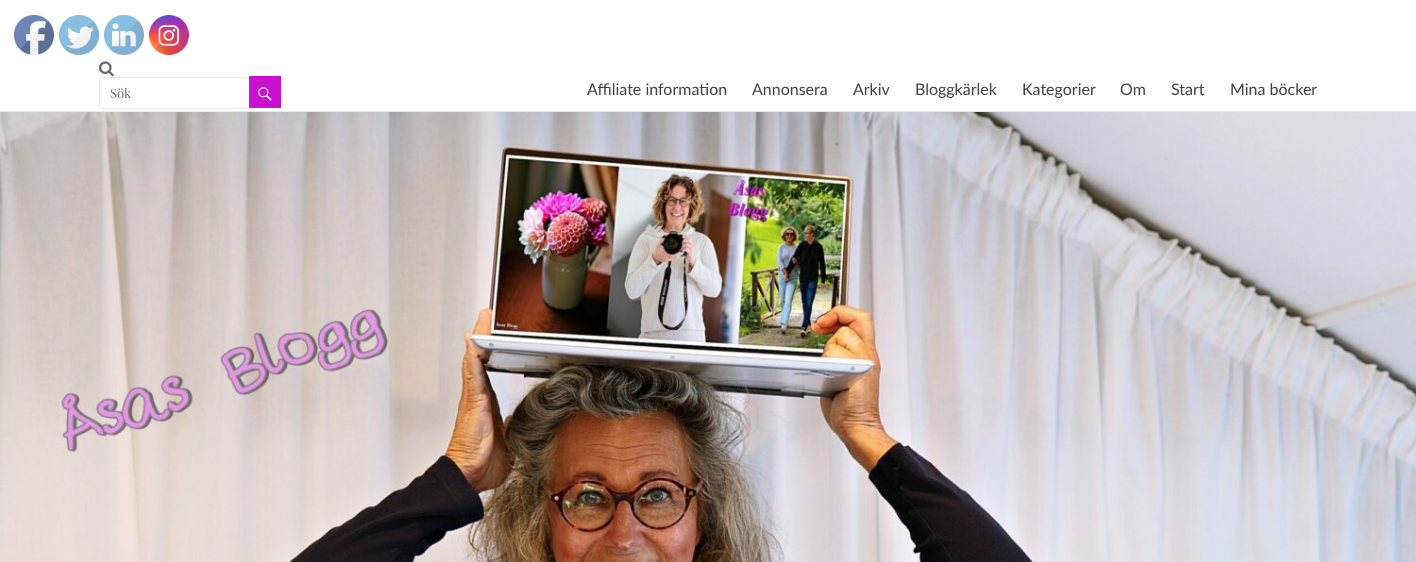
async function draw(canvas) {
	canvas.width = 1416;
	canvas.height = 562;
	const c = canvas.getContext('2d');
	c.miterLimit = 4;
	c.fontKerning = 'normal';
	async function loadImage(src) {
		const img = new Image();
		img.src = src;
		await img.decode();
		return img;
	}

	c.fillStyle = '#fff';
	c.fillRect(0, 0, 1416, 562);
	c.drawImage(await loadImage('img1.png'), 14, 15, 40, 40);
	c.drawImage(await loadImage('img2.png'), 59, 15, 40, 40);
	c.drawImage(await loadImage('img3.png'), 104, 15, 40, 40);
	c.drawImage(await loadImage('img4.png'), 149, 15, 40, 40);
	c.fillStyle = '#eaeaea';
	c.fillRect(0, 111, 1416, 1);
	c.drawImage(await loadImage('img5.png'), 99, 61, 15, 16);
	c.beginPath();
	c.roundRect(99.5, 77.5, 151, 31, 2.5);
	c.strokeStyle = '#eaeaea';
	c.stroke();
	c.font = '13px Playfair Display';
	c.fillStyle = '#757575';
	c.fillText('Sök', 110, 98);
	c.fillStyle = '#ca10d1';
	c.fillRect(249, 76, 32, 32);
	c.drawImage(await loadImage('img6.png'), 258, 87, 14, 14);
	c.font = '16px Lato';
	c.fillStyle = '#444';
	for (const [text, x, y] of [
		['Affiliate information', 587, 95],
		['Annonsera', 752, 95],
		['Arkiv', 853, 95],
		['Bloggkärlek', 915, 95],
		['Kategorier', 1022, 95],
		['Om', 1120, 95],
		['Start', 1171, 95],
		['Mina böcker', 1230, 95],
	]) {
		c.fillText(text, x, y);
	}
	c.drawImage(await loadImage('img7.png'), 0, 112, 1416, 450);
}

draw(document.querySelector('canvas'));
